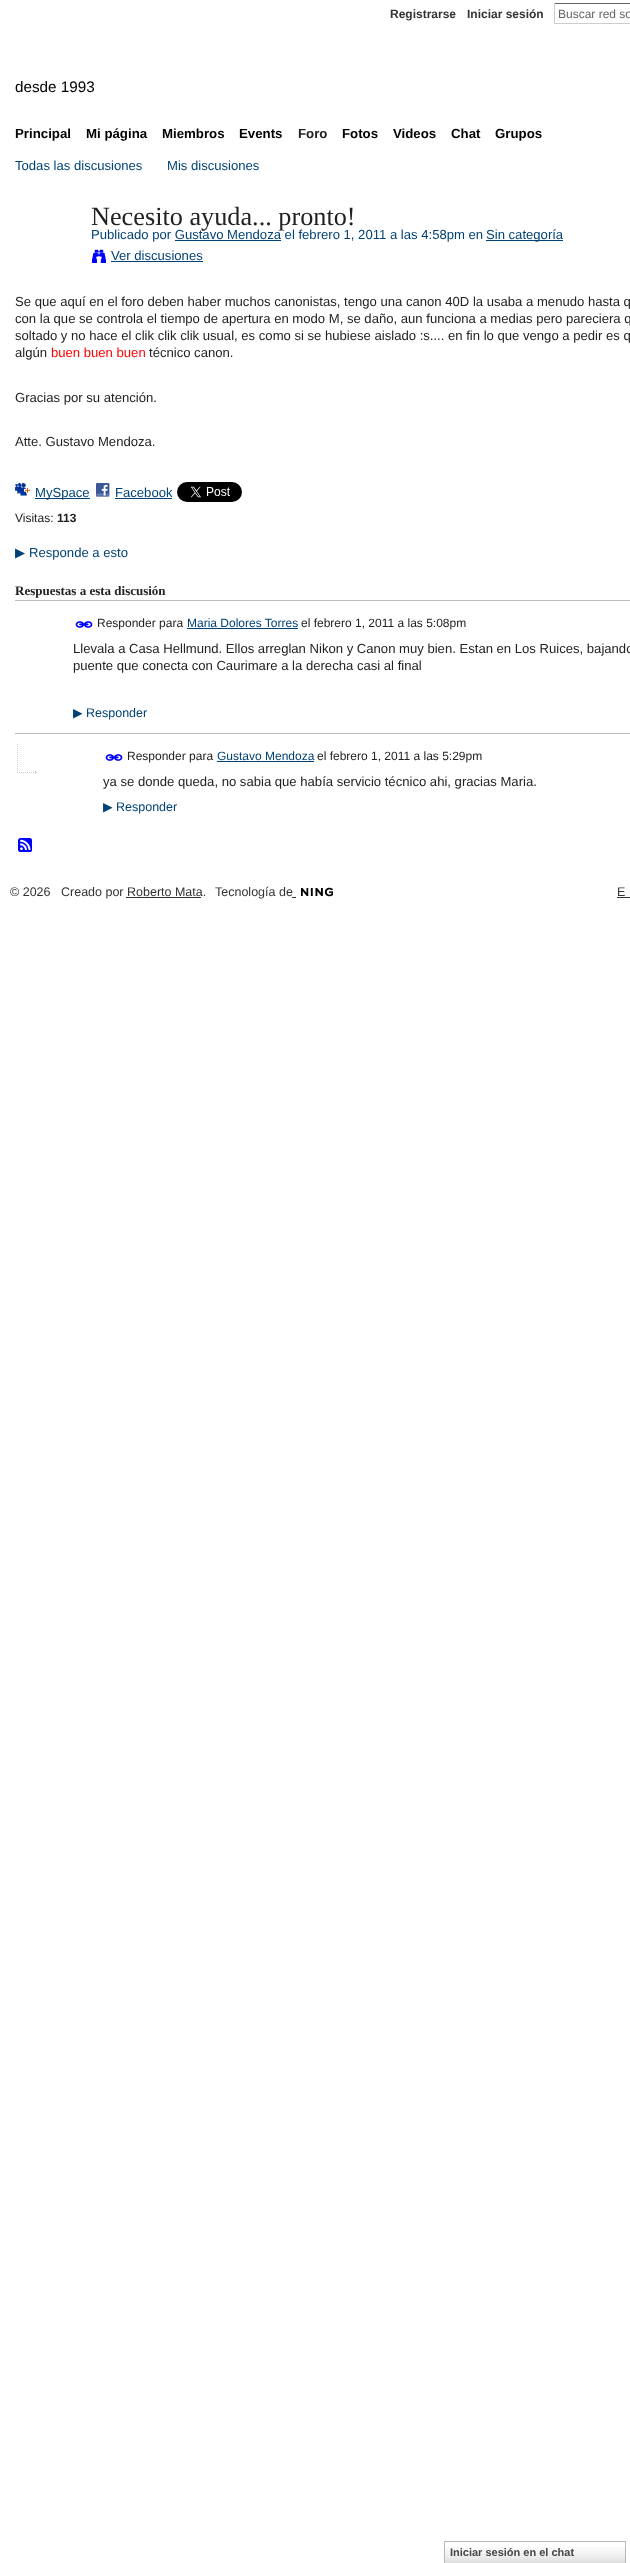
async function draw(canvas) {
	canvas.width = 630;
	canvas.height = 2563;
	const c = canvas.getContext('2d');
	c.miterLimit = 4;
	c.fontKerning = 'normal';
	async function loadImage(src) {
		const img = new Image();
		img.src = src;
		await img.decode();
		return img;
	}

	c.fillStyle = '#fff';
	c.fillRect(0, 0, 630, 2563);
	c.font = 'bold 12px Liberation Sans';
	c.fillStyle = '#333';
	c.fillText('Registrarse', 390, 18);
	c.fillText('Iniciar sesión', 467, 18);
	for (const [x, y, w, h, color] of [
		[554, 3, 76, 1, '#666'],
		[554, 23, 76, 1, '#ccc'],
		[554, 3, 1, 21, '#ccc'],
	]) {
		c.fillStyle = color;
		c.fillRect(x, y, w, h);
	}
	c.font = '12px Liberation Sans';
	c.fillStyle = '#666';
	c.fillText('Buscar red so', 558, 18);
	c.font = '15.25px Liberation Sans';
	c.fillStyle = '#000';
	c.fillText('desde 1993', 15, 92);
	c.font = 'bold 13.25px Liberation Sans';
	for (const [text, x, y] of [
		['Principal', 15, 138],
		['Mi página', 86, 138],
		['Miembros', 162, 138],
		['Events', 239, 138],
	]) {
		c.fillText(text, x, y);
	}
	c.fillStyle = '#222';
	c.fillText('Foro', 298, 138);
	c.fillStyle = '#000';
	for (const [text, x, y] of [
		['Fotos', 342, 138],
		['Videos', 393, 138],
		['Chat', 451, 138],
		['Grupos', 495, 138],
	]) {
		c.fillText(text, x, y);
	}
	c.font = '13.1px Liberation Sans';
	c.fillStyle = '#004276';
	c.fillText('Todas las discusiones', 15, 170);
	c.fillText('Mis discusiones', 167, 170);
	c.font = '26.25px Liberation Serif';
	c.fillStyle = '#222';
	c.fillText('Necesito ayuda... pronto!', 91, 225);
	c.font = '13.1px Liberation Sans';
	c.fillStyle = '#004276';
	c.fillText('Publicado por Gustavo Mendoza el febrero 1, 2011 a las 4:58pm en', 91, 239);
	c.fillRect(486, 240, 77, 1);
	c.fillText('Sin categoría', 486, 239);
	c.fillRect(175, 240, 106, 1);
	c.drawImage(await loadImage('img1.png'), 92, 249, 14, 14);
	c.fillText('Ver discusiones', 111, 260);
	c.fillRect(111, 261, 92, 1);
	c.fillStyle = '#222';
	for (const [text, x, y] of [
		['Se que aquí en el foro deben haber muchos canonistas, tengo una canon 40D la usaba a menudo hasta q', 15, 306],
		['con la que se controla el tiempo de apertura en modo M, se daño, aun funciona a medias pero pareciera q', 15, 323],
		['soltado y no hace el clik clik clik usual, es como si se hubiese aislado :s.... en fin lo que vengo a pedir es q', 15, 340],
		['algún', 15, 357],
	]) {
		c.fillText(text, x, y);
	}
	c.fillStyle = '#f00';
	c.fillText('buen buen buen', 51, 357);
	c.fillStyle = '#222';
	for (const [text, x, y] of [
		['técnico canon.', 149, 357],
		['Gracias por su atención.', 15, 402],
		['Atte. Gustavo Mendoza.', 15, 446],
	]) {
		c.fillText(text, x, y);
	}
	c.drawImage(await loadImage('img2.png'), 15, 483, 15, 13);
	c.fillStyle = '#004276';
	c.fillRect(35, 498, 55, 1);
	c.fillText('MySpace', 35, 497);
	c.drawImage(await loadImage('img3.png'), 96, 483, 14, 14);
	c.fillText('Facebook', 115, 497);
	c.fillRect(115, 498, 57, 1);
	c.drawImage(await loadImage('img4.png'), 177, 482, 65, 20);
	c.font = '12px Liberation Sans';
	c.fillStyle = '#222';
	c.fillText('Visitas:', 15, 522);
	c.font = 'bold 12px Liberation Sans';
	c.fillText('113', 57, 522);
	c.font = '13.1px DejaVu Sans';
	c.fillStyle = '#004276';
	c.fillText('▶', 15, 557);
	c.font = '13.1px Liberation Sans';
	c.fillText('Responde a esto', 29, 557);
	c.font = 'bold 13px Liberation Serif';
	c.fillStyle = '#222';
	c.fillText('Respuestas a esta discusión', 15, 595);
	c.fillStyle = '#bbb';
	c.fillRect(15, 600, 615, 1);
	c.drawImage(await loadImage('img5.png'), 75, 621, 18, 7);
	c.font = '12px Liberation Sans';
	c.fillStyle = '#222';
	c.fillText('Responder para', 97, 627);
	c.fillStyle = '#004276';
	c.fillText('Maria Dolores Torres', 187, 627);
	c.fillRect(187, 628, 111, 1);
	c.fillStyle = '#222';
	c.fillText('el febrero 1, 2011 a las 5:08pm', 301, 627);
	c.font = '13.1px Liberation Sans';
	c.fillText('Llevala a Casa Hellmund. Ellos arreglan Nikon y Canon muy bien. Estan en Los Ruices, bajando', 73, 653);
	c.fillText('puente que conecta con Caurimare a la derecha casi al final', 73, 670);
	c.font = '12.5px DejaVu Sans';
	c.fillStyle = '#004276';
	c.fillText('▶', 73, 717);
	c.font = '12.5px Liberation Sans';
	c.fillText('Responder', 86, 717);
	c.drawImage(await loadImage('img6.png'), 17, 744, 20, 30);
	c.fillStyle = '#bbb';
	c.fillRect(15, 733, 615, 1);
	c.drawImage(await loadImage('img5.png'), 105, 754, 18, 7);
	c.font = '12px Liberation Sans';
	c.fillStyle = '#222';
	c.fillText('Responder para', 127, 760);
	c.fillStyle = '#004276';
	c.fillText('Gustavo Mendoza', 217, 760);
	c.fillRect(217, 761, 97, 1);
	c.fillStyle = '#222';
	c.fillText('el febrero 1, 2011 a las 5:29pm', 317, 760);
	c.font = '13.1px Liberation Sans';
	c.fillText('ya se donde queda, no sabia que había servicio técnico ahi, gracias Maria.', 103, 786);
	c.font = '12.5px DejaVu Sans';
	c.fillStyle = '#004276';
	c.fillText('▶', 103, 811);
	c.font = '12.5px Liberation Sans';
	c.fillText('Responder', 116, 811);
	c.drawImage(await loadImage('img7.png'), 18, 838, 14, 14);
	c.fillStyle = '#333';
	for (const [text, x, y] of [
		['© 2026', 10, 896],
		['Creado por Roberto Mata.', 61, 896],
		['Tecnología de', 215, 896],
	]) {
		c.fillText(text, x, y);
	}
	c.drawImage(await loadImage('img8.png'), 301, 887, 32, 10);
	c.fillRect(126, 897, 75, 1);
	c.fillRect(292, 897, 4, 1);
	c.fillText('E', 617, 896);
	c.fillRect(617, 897, 13, 1);
	c.drawImage(await loadImage('img9.png'), 445, 2547, 180, 16);
	c.strokeStyle = '#b7b7b7';
	c.strokeRect(444.5, 2541.5, 181, 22);
	c.font = 'bold 11px Liberation Sans';
	c.fillStyle = '#454545';
	c.fillText('Iniciar sesión en el chat', 450, 2556);
}

draw(document.querySelector('canvas'));
